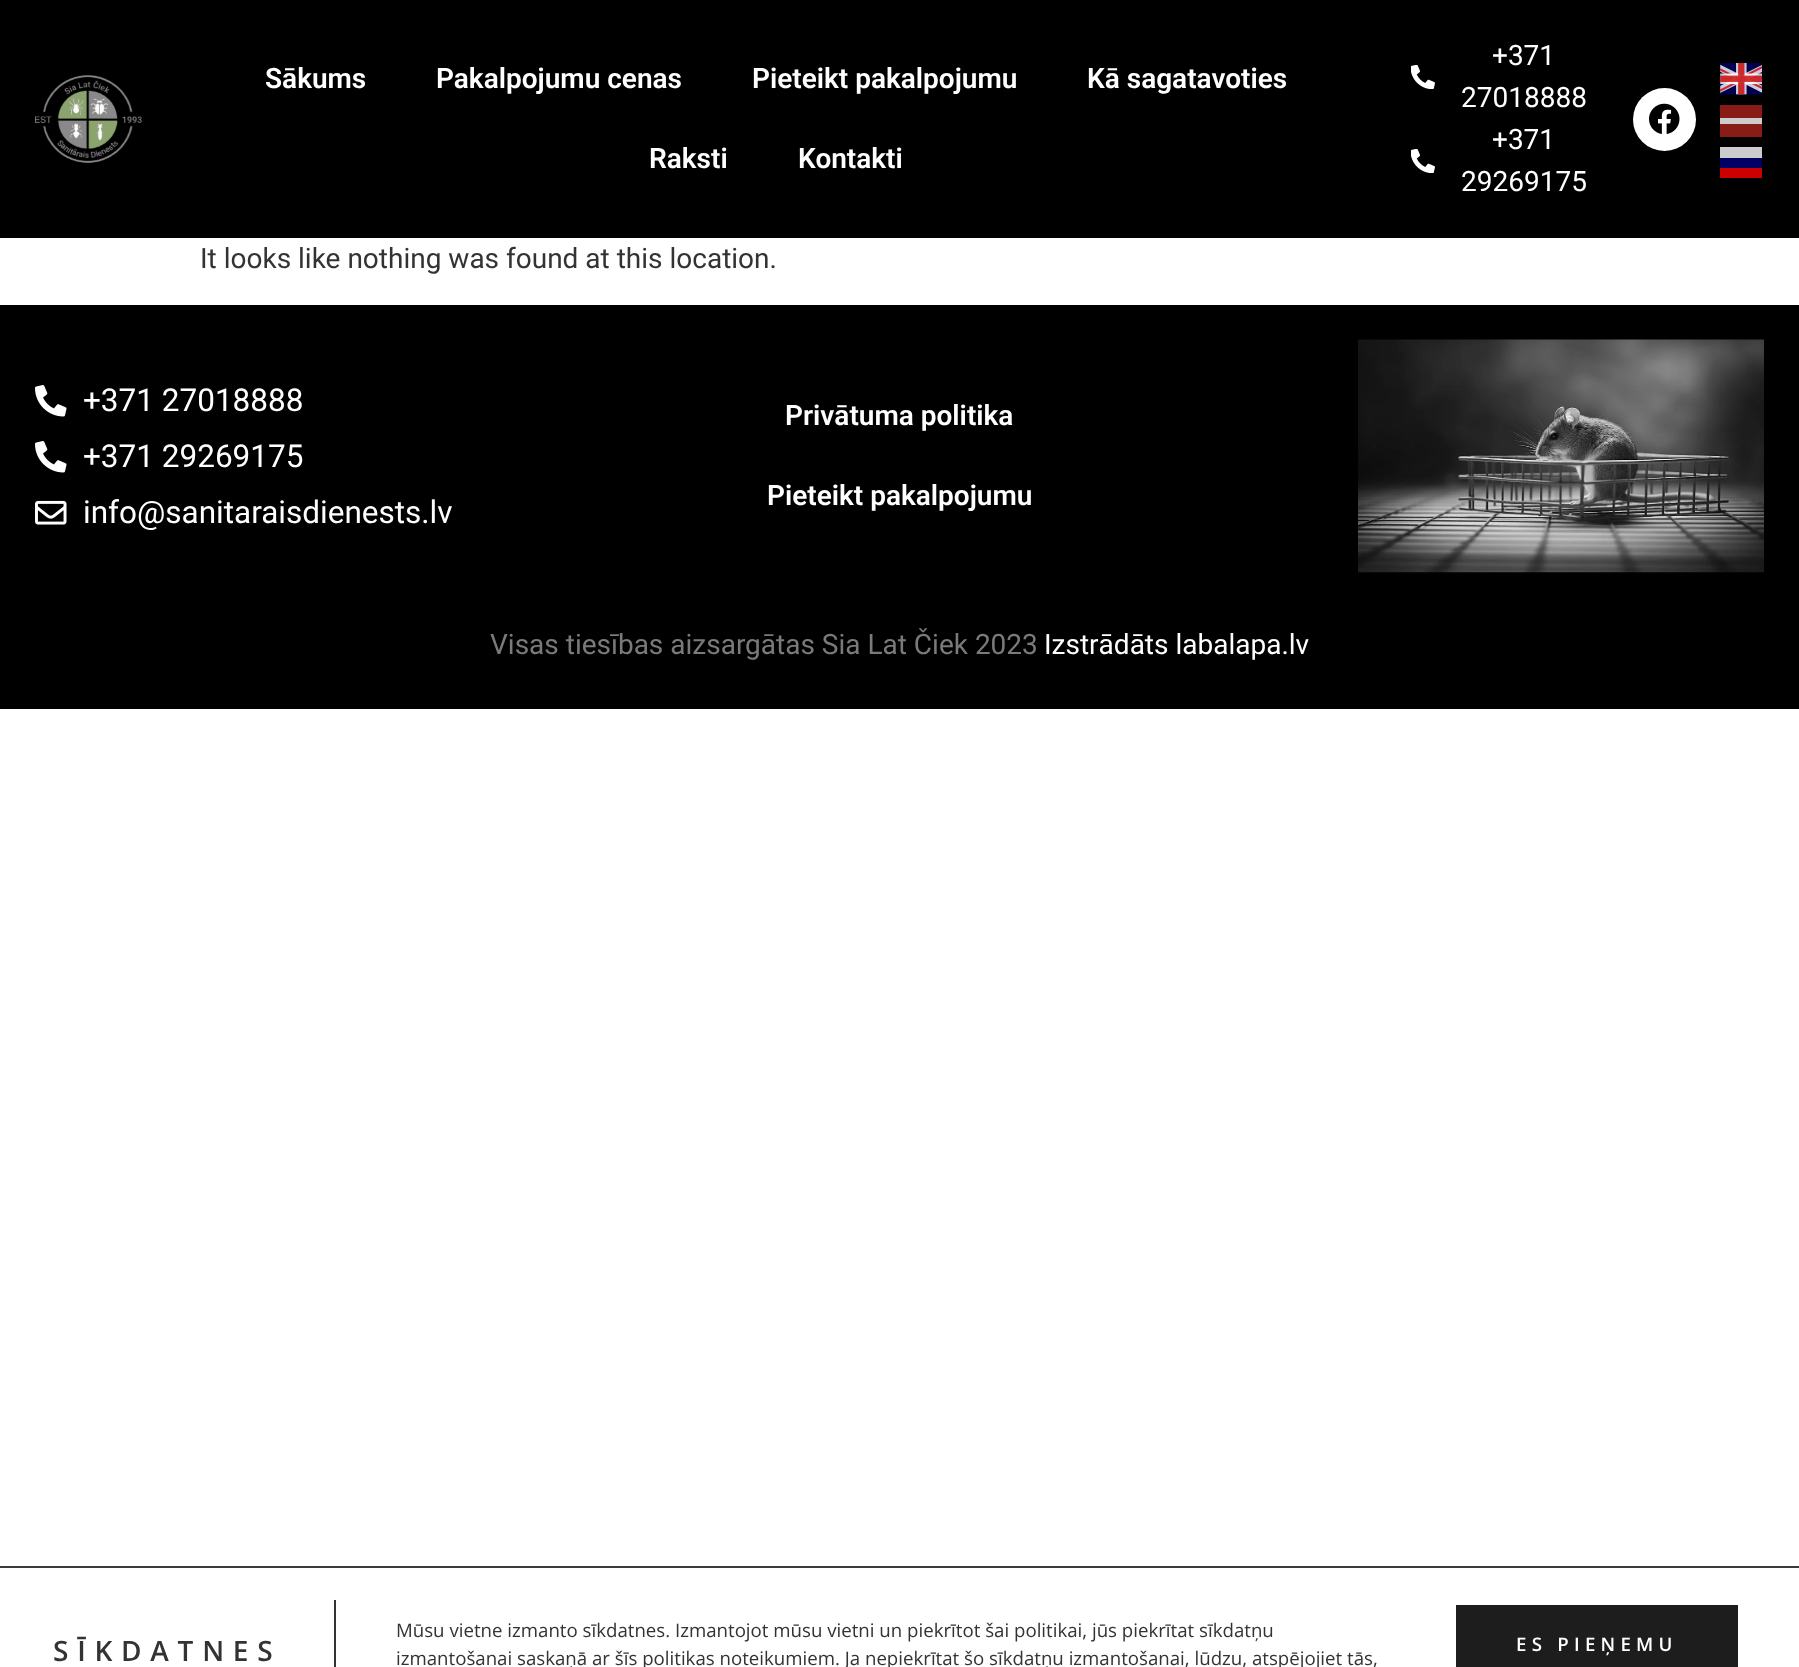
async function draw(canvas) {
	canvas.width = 1799;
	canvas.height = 1667;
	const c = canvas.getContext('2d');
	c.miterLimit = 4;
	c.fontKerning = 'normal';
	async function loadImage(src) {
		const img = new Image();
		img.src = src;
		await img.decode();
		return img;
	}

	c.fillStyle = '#fff';
	c.fillRect(0, 0, 1799, 1667);
	c.fillStyle = '#000';
	c.fillRect(0, 0, 1799, 238);
	c.drawImage(await loadImage('img1.png'), 35, 75, 107, 88);
	c.font = '600 28px Roboto';
	c.fillStyle = '#fff';
	for (const [text, x, y] of [
		['Sākums', 265, 88],
		['Pakalpojumu cenas', 436, 88],
		['Pieteikt pakalpojumu', 752, 88],
		['Kā sagatavoties', 1087, 88],
		['Raksti', 649, 168],
		['Kontakti', 798, 168],
	]) {
		c.fillText(text, x, y);
	}
	c.drawImage(await loadImage('img2.png'), 1411, 65, 24, 24);
	c.font = '28px Roboto';
	c.fillText('+371', 1492, 65);
	c.fillText('27018888', 1461, 107);
	c.drawImage(await loadImage('img2.png'), 1411, 149, 24, 24);
	c.fillText('+371', 1492, 149);
	c.fillText('29269175', 1461, 191);
	c.beginPath();
	c.arc(1664.5, 119.5, 31.5, 0, 2 * Math.PI);
	c.fill();
	c.drawImage(await loadImage('img3.png'), 1649, 103, 31, 31);
	c.drawImage(await loadImage('img4.png'), 1720, 63, 42, 32);
	c.fillStyle = '#ccc';
	c.fillRect(1720, 118, 42, 6);
	c.fillStyle = '#891c17';
	c.beginPath();
	c.moveTo(1720, 105);
	c.lineTo(1762, 105);
	c.lineTo(1762, 118);
	c.lineTo(1720, 118);
	c.closePath();
	c.moveTo(1720, 124);
	c.lineTo(1762, 124);
	c.lineTo(1762, 137);
	c.lineTo(1720, 137);
	c.closePath();
	c.fill('evenodd');
	for (const [x, y, w, h, color] of [
		[1720, 147, 42, 11, '#ccc'],
		[1720, 158, 42, 10, '#010165'],
		[1720, 168, 42, 10, '#cb0101'],
	]) {
		c.fillStyle = color;
		c.fillRect(x, y, w, h);
	}
	c.fillStyle = '#333';
	c.fillText('It looks like nothing was found at this location.', 200, 268);
	c.fillStyle = '#000';
	c.fillRect(0, 305, 1799, 404);
	c.drawImage(await loadImage('img5.png'), 35, 385, 32, 32);
	c.font = '31.5px Roboto';
	c.fillStyle = '#fff';
	c.fillText('+371 27018888', 83, 411);
	c.drawImage(await loadImage('img5.png'), 35, 441, 32, 32);
	c.fillText('+371 29269175', 83, 467);
	c.drawImage(await loadImage('img6.png'), 35, 500, 32, 25);
	c.fillText('info@sanitaraisdienests.lv', 83, 523);
	c.font = '600 28px Roboto';
	c.fillText('Privātuma politika', 785, 425);
	c.fillText('Pieteikt pakalpojumu', 767, 505);
	c.drawImage(await loadImage('img7.png'), 1358, 339, 406, 234);
	c.font = '28px Roboto';
	c.fillStyle = '#7a7a7a';
	c.fillText('Visas tiesības aizsargātas Sia Lat Čiek 2023', 490, 654);
	c.fillStyle = '#fff';
	c.fillText('Izstrādāts labalapa.lv', 1044, 654);
	c.fillStyle = '#3b3939';
	c.fillRect(0, 1566, 1799, 2);
	c.fillStyle = '#333';
	c.fillRect(334, 1600, 2, 67);
	c.letterSpacing = '8.75px';
	c.font = '600 28px Open Sans';
	c.fillText('SĪKDATNES', 53, 1661);
	c.letterSpacing = '0px';
	c.font = '18.67px Open Sans';
	c.fillText('Mūsu vietne izmanto sīkdatnes. Izmantojot mūsu vietni un piekrītot šai politikai, jūs piekrītat sīkdatņu', 396, 1637);
	c.fillText('izmantošanai saskaņā ar šīs politikas noteikumiem. Ja nepiekrītat šo sīkdatņu izmantošanai, lūdzu, atspējojiet tās,', 396, 1665);
	c.fillStyle = '#1d1d1d';
	c.fillRect(1456, 1605, 282, 62);
	c.letterSpacing = '5.25px';
	c.font = '600 18.67px Open Sans';
	c.fillStyle = '#fff';
	c.fillText('ES PIEŅEMU', 1516, 1651);
}

draw(document.querySelector('canvas'));
